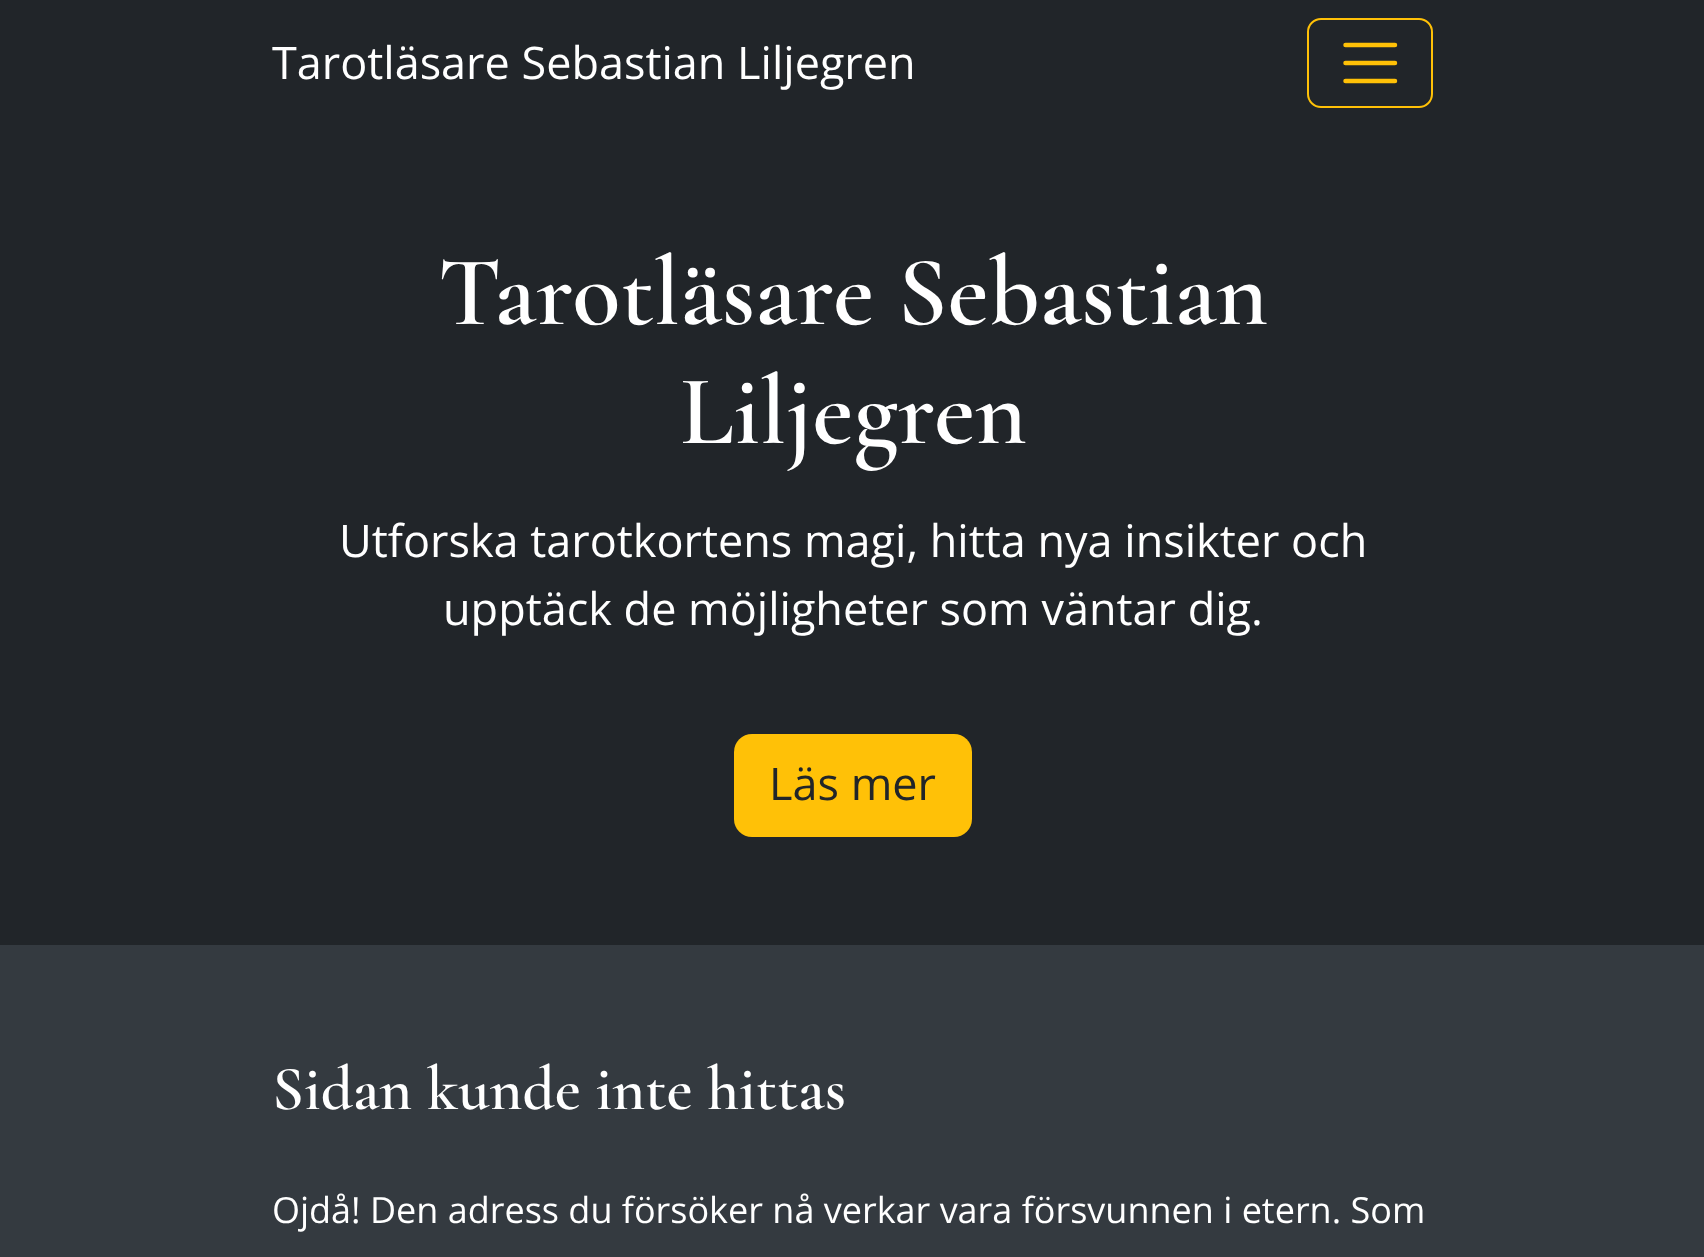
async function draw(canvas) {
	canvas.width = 1704;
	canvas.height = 1257;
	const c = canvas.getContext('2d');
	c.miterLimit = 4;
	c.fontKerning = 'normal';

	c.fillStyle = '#343a40';
	c.fillRect(0, 0, 1704, 1257);
	c.fillStyle = '#212529';
	c.fillRect(0, 0, 1704, 945);
	c.font = '45px Open Sans';
	c.fillStyle = '#fff';
	c.fillText('Tarotläsare Sebastian Liljegren', 272, 79);
	c.beginPath();
	c.roundRect(1308, 19, 124, 88, 13);
	c.strokeStyle = '#ffc107';
	c.lineWidth = 2;
	c.stroke();
	c.beginPath();
	c.moveTo(1345.5, 45);
	c.lineTo(1395, 45);
	c.moveTo(1345.5, 63);
	c.lineTo(1395, 63);
	c.moveTo(1345.5, 81);
	c.lineTo(1395, 81);
	c.lineWidth = 4.5;
	c.lineCap = 'round';
	c.stroke();
	c.font = '600 99.25px Cormorant Garamond';
	c.fillText('Tarotläsare Sebastian', 438, 324);
	c.fillText('Liljegren', 680, 443);
	c.font = '45px Open Sans';
	c.fillText('Utforska tarotkortens magi, hitta nya insikter och', 339, 557);
	c.fillText('upptäck de möjligheter som väntar dig.', 443, 625);
	c.fillStyle = '#ffc107';
	c.beginPath();
	c.roundRect(734, 734, 238, 103, 18);
	c.fill();
	c.fillStyle = '#212529';
	c.fillText('Läs mer', 769, 800);
	c.font = '600 63px Cormorant Garamond';
	c.fillStyle = '#fff';
	c.fillText('Sidan kunde inte hittas', 272, 1109);
	c.font = '36px Open Sans';
	c.fillText('Ojdå! Den adress du försöker nå verkar vara försvunnen i etern. Som', 272, 1223);
}

draw(document.querySelector('canvas'));
